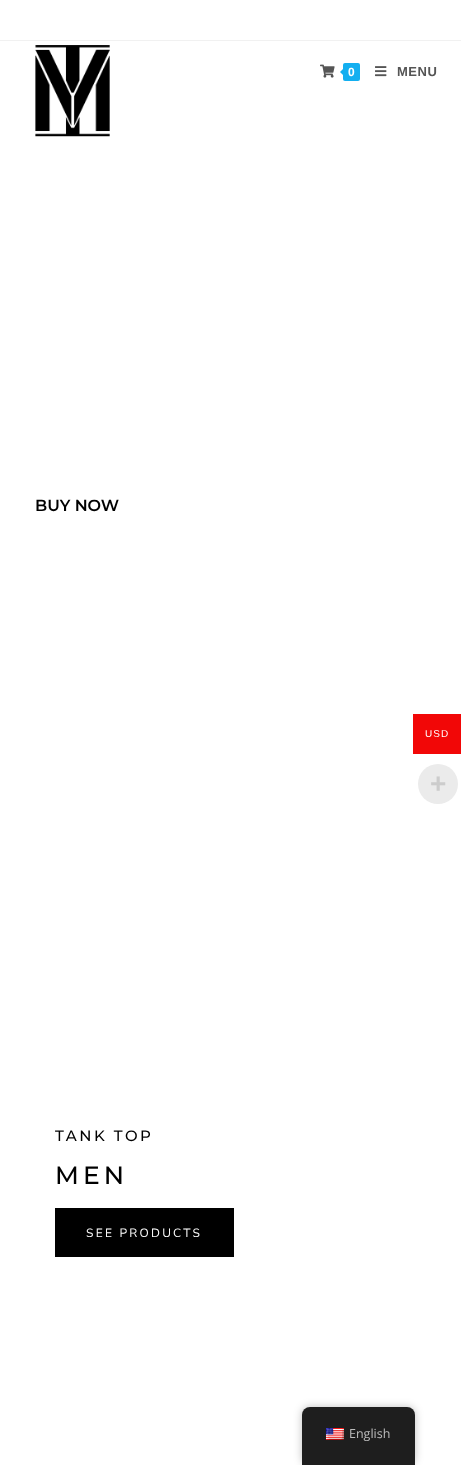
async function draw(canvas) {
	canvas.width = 461;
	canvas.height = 1465;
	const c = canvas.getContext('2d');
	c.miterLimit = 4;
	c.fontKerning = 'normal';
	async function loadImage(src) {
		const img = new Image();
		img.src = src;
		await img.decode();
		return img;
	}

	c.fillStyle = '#fff';
	c.fillRect(0, 0, 461, 1465);
	c.fillStyle = '#f1f1f1';
	c.fillRect(0, 40, 461, 1);
	c.drawImage(await loadImage('img1.png'), 35, 45, 75, 92);
	c.drawImage(await loadImage('img2.png'), 320, 64, 15, 14);
	c.fillStyle = '#13aff0';
	c.beginPath();
	c.roundRect(343, 63, 17, 18, 2);
	c.fill();
	c.beginPath();
	c.moveTo(345, 67);
	c.lineTo(345, 77);
	c.lineTo(340, 72);
	c.closePath();
	c.fill();
	c.letterSpacing = '0.5px';
	c.font = 'bold 12px Liberation Sans';
	c.fillStyle = '#fff';
	c.fillText('0', 348, 76);
	c.drawImage(await loadImage('img3.png'), 375, 66, 12, 11);
	c.font = 'bold 13px Liberation Sans';
	c.fillStyle = '#555';
	c.fillText('MENU', 397, 76);
	c.letterSpacing = '0px';
	c.font = '600 16px Montserrat';
	c.fillStyle = '#000';
	c.fillText('BUY NOW', 35, 511);
	c.letterSpacing = '2.5px';
	c.font = '500 15px Montserrat';
	c.fillText('TANK TOP', 55, 1141);
	c.letterSpacing = '4px';
	c.font = '500 25px Montserrat';
	c.fillText('MEN', 55, 1184);
	c.fillRect(55, 1208, 179, 49);
	c.letterSpacing = '2.25px';
	c.font = '12px Nunito Sans';
	c.fillStyle = '#fff';
	c.fillText('SEE PRODUCTS', 86, 1237);
	c.fillStyle = '#f20707';
	c.fillRect(413, 714, 48, 40);
	c.letterSpacing = '1px';
	c.font = '10px Liberation Sans';
	c.fillStyle = '#fff';
	c.fillText('USD', 425, 737);
	c.fillStyle = '#ebebeb';
	c.beginPath();
	c.arc(438, 784, 20, 0, 2 * Math.PI);
	c.fill();
	c.letterSpacing = '0px';
	c.font = 'bold 28px Liberation Sans';
	c.fillStyle = '#ccc';
	c.fillText('+', 430, 793);
	c.fillStyle = '#00000040';
	c.filter = 'blur(4px)';
	c.beginPath();
	c.roundRect(302, 1407, 113, 58, 8);
	c.fill();
	c.filter = 'none';
	c.fillStyle = '#1e1e1e';
	c.beginPath();
	c.roundRect(302, 1407, 113, 58, [8, 8, 0, 0]);
	c.fill();
	c.drawImage(await loadImage('img4.png'), 326, 1428, 18, 12);
	c.font = '12.5px Open Sans';
	c.fillStyle = '#bdbdbd';
	c.fillText('English', 349, 1438);
}

draw(document.querySelector('canvas'));
